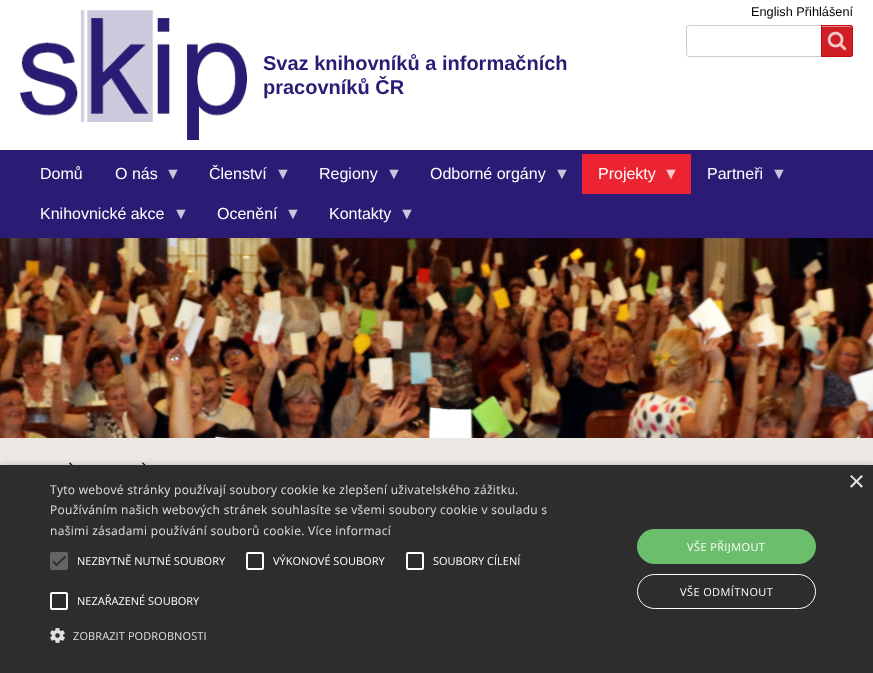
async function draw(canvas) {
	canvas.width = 873;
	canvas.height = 673;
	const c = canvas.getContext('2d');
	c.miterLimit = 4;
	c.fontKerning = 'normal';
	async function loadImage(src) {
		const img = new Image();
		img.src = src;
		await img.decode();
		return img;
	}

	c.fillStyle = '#fff';
	c.fillRect(0, 0, 873, 673);
	c.font = '12.75px Liberation Sans';
	c.fillStyle = '#000';
	c.fillText('English Přihlášení', 751, 16);
	c.beginPath();
	c.roundRect(686.5, 25.5, 166, 31, 2.5);
	c.strokeStyle = '#ccc';
	c.stroke();
	c.fillStyle = '#cb050de6';
	c.beginPath();
	c.roundRect(821, 25, 32, 32, [0, 3, 3, 0]);
	c.fill();
	c.drawImage(await loadImage('img1.png'), 827, 31, 20, 20);
	c.fillStyle = '#e58387';
	c.beginPath();
	c.moveTo(822, 27);
	c.lineTo(850, 27);
	c.bezierCurveTo(851, 27, 852, 28, 852, 29);
	c.lineTo(852, 28);
	c.bezierCurveTo(852, 27, 851, 26, 850, 26);
	c.lineTo(822, 26);
	c.closePath();
	c.fill();
	c.beginPath();
	c.roundRect(821.5, 25.5, 31, 31, [0, 2.5, 2.5, 0]);
	c.strokeStyle = '#cb050de6';
	c.stroke();
	c.drawImage(await loadImage('img2.png'), 20, 10, 227, 130);
	c.font = 'bold 20px Liberation Sans';
	c.fillStyle = '#2b1b74';
	c.fillText('Svaz knihovníků a informačních', 263, 70);
	c.fillText('pracovníků ČR', 263, 94);
	c.fillRect(0, 150, 873, 88);
	c.font = '16px Liberation Sans';
	c.fillStyle = '#fff';
	c.fillText('Domů', 40, 179);
	c.fillText('O nás', 115, 179);
	c.fillStyle = '#cac6dc';
	c.fillText('▼', 165, 179);
	c.fillStyle = '#fff';
	c.fillText('Členství', 209, 179);
	c.fillStyle = '#cac6dc';
	c.fillText('▼', 275, 179);
	c.fillStyle = '#fff';
	c.fillText('Regiony', 319, 179);
	c.fillStyle = '#cac6dc';
	c.fillText('▼', 386, 179);
	c.fillStyle = '#fff';
	c.fillText('Odborné orgány', 430, 179);
	c.fillStyle = '#cac6dc';
	c.fillText('▼', 554, 179);
	c.fillStyle = '#ec2331';
	c.fillRect(582, 154, 109, 40);
	c.fillStyle = '#fff';
	c.fillText('Projekty', 598, 179);
	c.fillStyle = '#fac8cc';
	c.fillText('▼', 663, 179);
	c.fillStyle = '#fff';
	c.fillText('Partneři', 707, 179);
	c.fillStyle = '#cac6dc';
	c.fillText('▼', 771, 179);
	c.fillStyle = '#fff';
	c.fillText('Knihovnické akce', 40, 219);
	c.fillStyle = '#cac6dc';
	c.fillText('▼', 173, 219);
	c.fillStyle = '#fff';
	c.fillText('Ocenění', 217, 219);
	c.fillStyle = '#cac6dc';
	c.fillText('▼', 285, 219);
	c.fillStyle = '#fff';
	c.fillText('Kontakty', 329, 219);
	c.fillStyle = '#cac6dc';
	c.fillText('▼', 399, 219);
	c.drawImage(await loadImage('img3.png'), 0, 238, 873, 200);
	c.fillStyle = '#ece9e4';
	c.fillRect(0, 438, 873, 27);
	c.drawImage(await loadImage('img4.png'), 69, 462, 4, 3);
	c.drawImage(await loadImage('img4.png'), 142, 462, 4, 3);
	c.fillStyle = '#00000059';
	c.filter = 'blur(4px)';
	c.beginPath();
	c.rect(1, 467, 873, 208);
	c.fill();
	c.filter = 'none';
	c.fillStyle = '#2d2d2d';
	c.fillRect(0, 465, 873, 208);
	c.font = '29px Liberation Sans';
	c.fillStyle = '#e0e0e0';
	c.fillText('×', 848, 491);
	c.letterSpacing = '0.3px';
	c.font = '12px Open Sans';
	for (const [text, x, y] of [
		['Tyto webové stránky používají soubory cookie ke zlepšení uživatelského zážitku.', 50, 494],
		['Používáním našich webových stránek souhlasíte se všemi soubory cookie v souladu s', 50, 514],
		['našimi zásadami používání souborů cookie. Více informací', 50, 535],
	]) {
		c.fillText(text, x, y);
	}
	c.fillStyle = '#646464';
	c.beginPath();
	c.roundRect(50, 552, 18, 18, 2);
	c.fill();
	c.beginPath();
	c.moveTo(53, 561.5);
	c.lineTo(56.5, 565);
	c.lineTo(65.5, 556.5);
	c.strokeStyle = '#2d2d2d';
	c.lineWidth = 1.8;
	c.stroke();
	c.letterSpacing = '0px';
	c.font = '11px Open Sans';
	c.fillStyle = '#fff';
	c.fillText('NEZBYTNĚ NUTNÉ SOUBORY', 77, 565);
	c.beginPath();
	c.roundRect(247, 553, 16, 16, 1);
	c.strokeStyle = '#fff';
	c.lineWidth = 2;
	c.stroke();
	c.fillText('VÝKONOVÉ SOUBORY', 273, 565);
	c.beginPath();
	c.roundRect(407, 553, 16, 16, 1);
	c.stroke();
	c.fillText('SOUBORY CÍLENÍ', 433, 565);
	c.beginPath();
	c.roundRect(51, 593, 16, 16, 1);
	c.stroke();
	c.fillText('NEZAŘAZENÉ SOUBORY', 77, 605);
	c.drawImage(await loadImage('img5.png'), 50, 628, 15, 15);
	c.letterSpacing = '0.1px';
	c.fillStyle = '#e0e0e0';
	c.fillText('ZOBRAZIT PODROBNOSTI', 73, 640);
	c.fillStyle = '#6bbe6b';
	c.beginPath();
	c.roundRect(637, 529, 179, 35, 17.5);
	c.fill();
	c.letterSpacing = '0.4px';
	c.fillStyle = '#fff';
	c.fillText('VŠE PŘIJMOUT', 687, 551);
	c.beginPath();
	c.roundRect(637.5, 574.5, 178, 34, 17);
	c.lineWidth = 1;
	c.stroke();
	c.fillText('VŠE ODMÍTNOUT', 680, 596);
}

draw(document.querySelector('canvas'));
